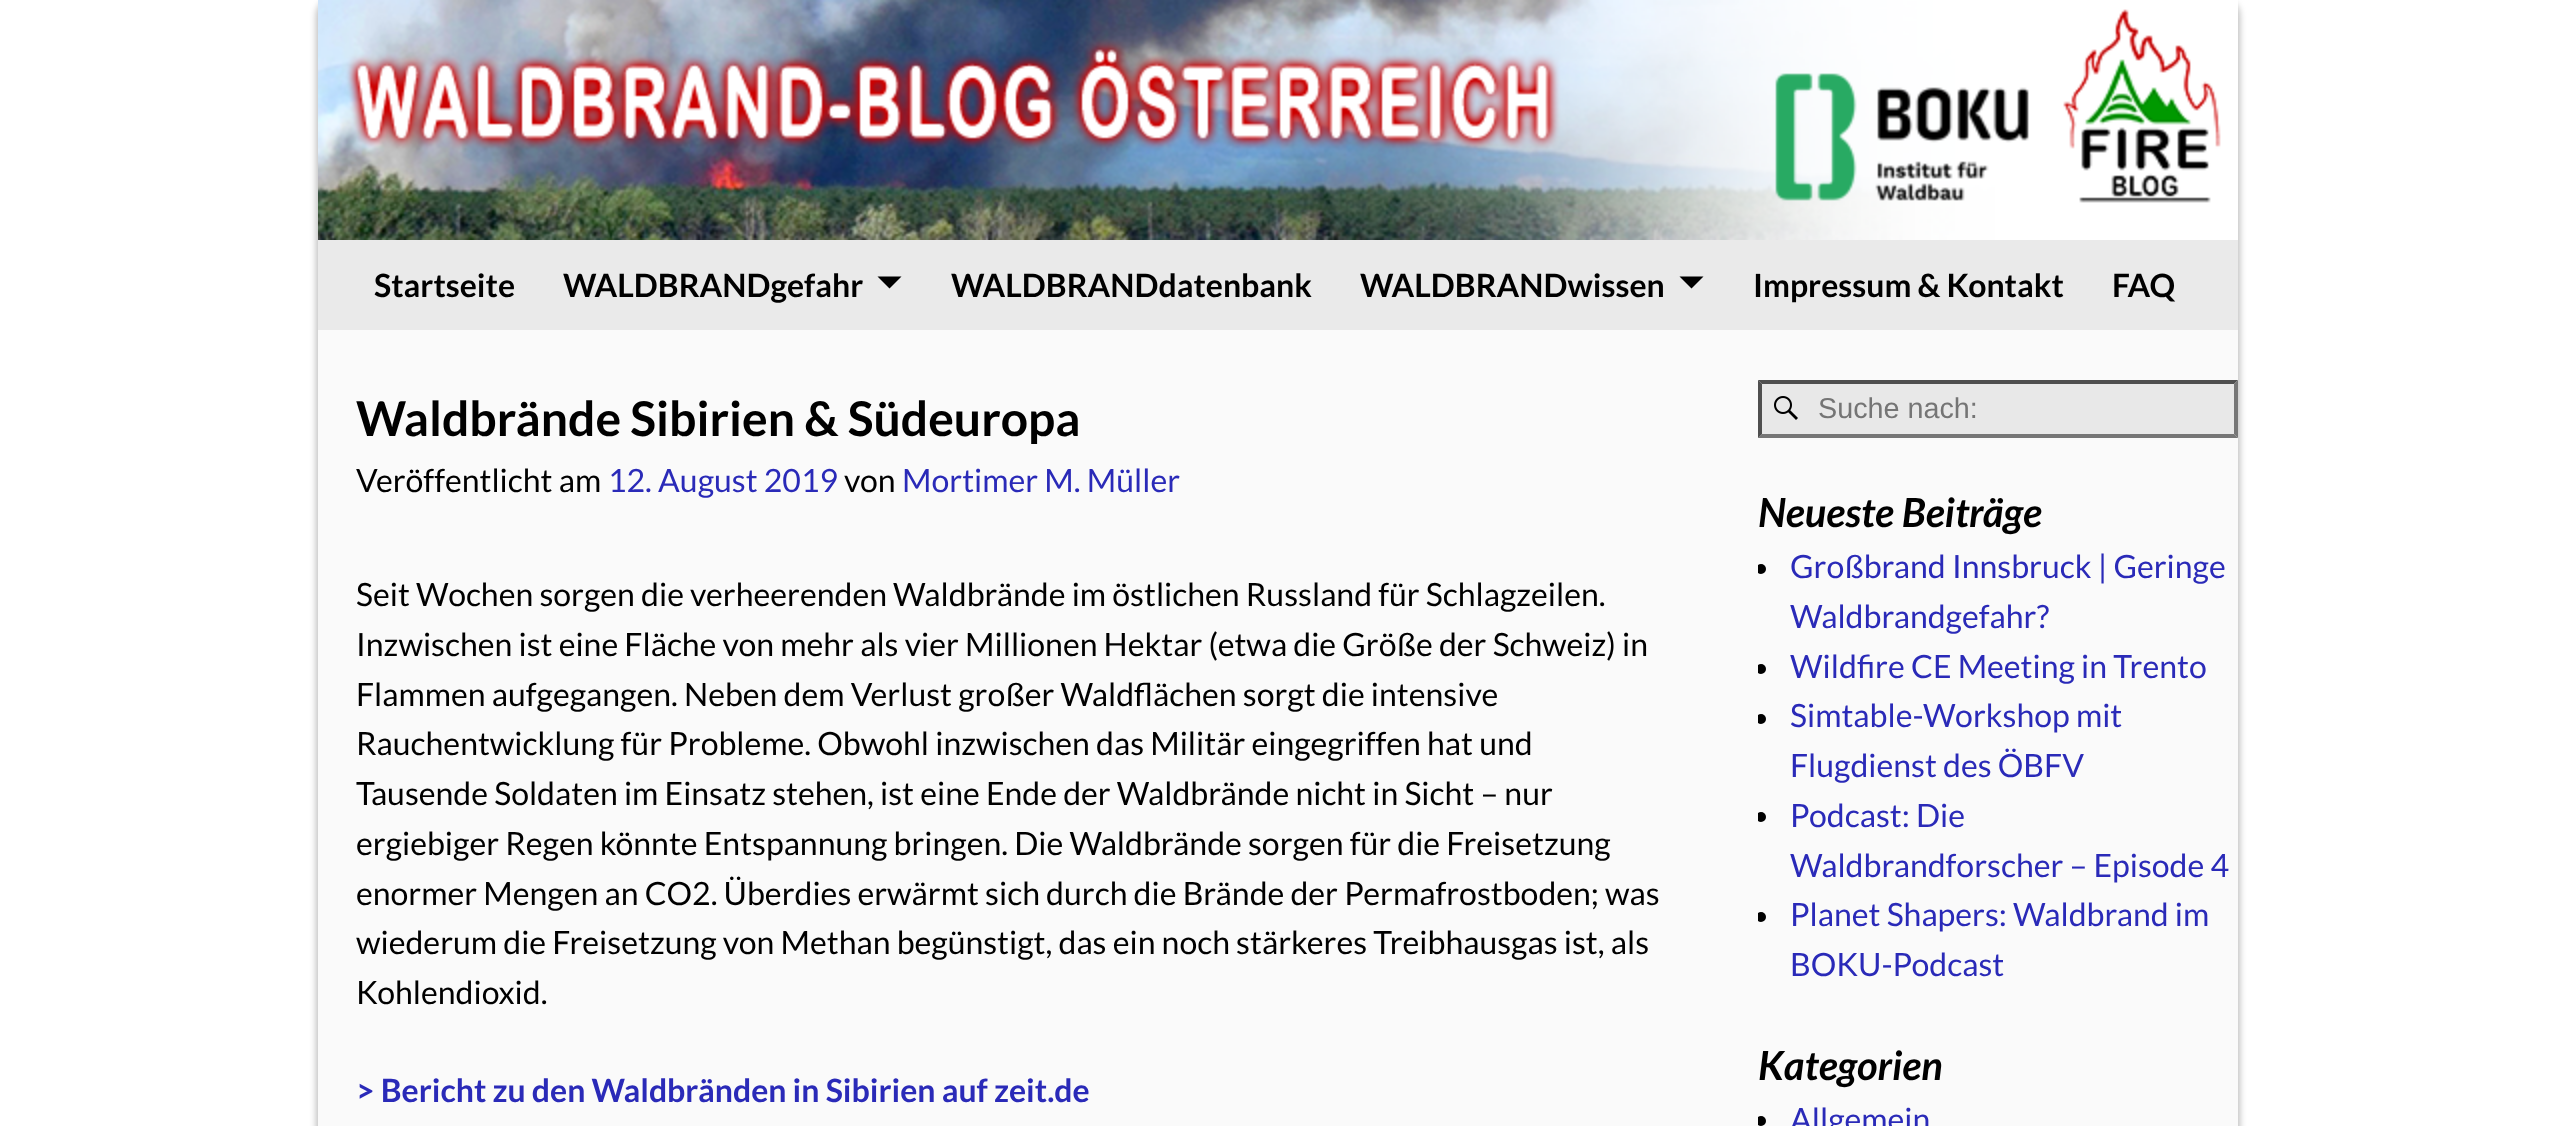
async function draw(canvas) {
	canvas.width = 2555;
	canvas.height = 1126;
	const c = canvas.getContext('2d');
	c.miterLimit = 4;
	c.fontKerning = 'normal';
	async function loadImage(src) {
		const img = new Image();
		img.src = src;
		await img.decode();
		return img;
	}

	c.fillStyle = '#fff';
	c.fillRect(0, 0, 2555, 1126);
	c.fillStyle = '#00000040';
	c.filter = 'blur(3px)';
	c.beginPath();
	c.roundRect(316, -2, 1924, 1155, 18);
	c.fill();
	c.filter = 'none';
	c.fillStyle = '#fafafa';
	c.fillRect(318, 330, 1920, 796);
	c.drawImage(await loadImage('img1.png'), 318, 0, 1920, 240);
	c.fillStyle = '#eaeaea';
	c.fillRect(318, 240, 1920, 90);
	c.font = 'bold 32px Lato';
	c.fillStyle = '#000';
	c.fillText('Startseite', 374, 297);
	c.fillText('WALDBRANDgefahr', 563, 297);
	c.beginPath();
	c.moveTo(877.5, 276.5);
	c.lineTo(901.5, 276.5);
	c.lineTo(889.5, 288.5);
	c.closePath();
	c.fill();
	c.fillText('WALDBRANDdatenbank', 951, 297);
	c.fillText('WALDBRANDwissen', 1360, 297);
	c.beginPath();
	c.moveTo(1679.5, 276.5);
	c.lineTo(1703.5, 276.5);
	c.lineTo(1691.5, 288.5);
	c.closePath();
	c.fill();
	c.fillText('Impressum & Kontakt', 1753, 297);
	c.fillText('FAQ', 2112, 297);
	c.font = 'bold 48px Lato';
	c.fillText('Waldbrände Sibirien & Südeuropa', 356, 436);
	c.font = '32px Lato';
	c.fillText('Veröffentlicht am', 356, 492);
	c.fillStyle = '#2a2ab8';
	c.fillText('12. August 2019', 608, 492);
	c.fillStyle = '#000';
	c.fillText('von', 844, 492);
	c.fillStyle = '#2a2ab8';
	c.fillText('Mortimer M. Müller', 902, 492);
	c.fillStyle = '#000';
	for (const [text, x, y] of [
		['Seit Wochen sorgen die verheerenden Waldbrände im östlichen Russland für Schlagzeilen.', 356, 606],
		['Inzwischen ist eine Fläche von mehr als vier Millionen Hektar (etwa die Größe der Schweiz) in', 356, 656],
		['Flammen aufgegangen. Neben dem Verlust großer Waldflächen sorgt die intensive', 356, 706],
		['Rauchentwicklung für Probleme. Obwohl inzwischen das Militär eingegriffen hat und', 356, 755],
		['Tausende Soldaten im Einsatz stehen, ist eine Ende der Waldbrände nicht in Sicht – nur', 356, 805],
		['ergiebiger Regen könnte Entspannung bringen. Die Waldbrände sorgen für die Freisetzung', 356, 855],
		['enormer Mengen an CO2. Überdies erwärmt sich durch die Brände der Permafrostboden; was', 356, 905],
		['wiederum die Freisetzung von Methan begünstigt, das ein noch stärkeres Treibhausgas ist, als', 356, 954],
		['Kohlendioxid.', 356, 1004],
	]) {
		c.fillText(text, x, y);
	}
	c.font = 'bold 32px Lato';
	c.fillStyle = '#2a2ab8';
	c.fillText('> Bericht zu den Waldbränden in Sibirien auf zeit.de', 356, 1102);
	c.fillStyle = '#e8e8e8';
	c.fillRect(1758, 380, 480, 58);
	c.drawImage(await loadImage('img2.png'), 1774, 396, 24, 24);
	c.fillStyle = '#4f4f4f';
	c.beginPath();
	c.moveTo(1758, 380);
	c.lineTo(2238, 380);
	c.lineTo(2234, 384);
	c.lineTo(1762, 384);
	c.closePath();
	c.fill();
	c.fillStyle = '#767676';
	c.beginPath();
	c.moveTo(2238, 380);
	c.lineTo(2238, 438);
	c.lineTo(2234, 434);
	c.lineTo(2234, 384);
	c.closePath();
	c.fill();
	c.beginPath();
	c.moveTo(2238, 438);
	c.lineTo(1758, 438);
	c.lineTo(1762, 434);
	c.lineTo(2234, 434);
	c.closePath();
	c.fill();
	c.fillStyle = '#4f4f4f';
	c.beginPath();
	c.moveTo(1758, 438);
	c.lineTo(1758, 380);
	c.lineTo(1762, 384);
	c.lineTo(1762, 434);
	c.closePath();
	c.fill();
	c.font = '28.75px Liberation Sans';
	c.fillStyle = '#757575';
	c.fillText('Suche nach:', 1818, 418);
	c.font = 'italic bold 40px Lato';
	c.fillStyle = '#000';
	c.fillText('Neueste Beiträge', 1758, 527);
	c.save();
	c.beginPath();
	c.rect(1758, 488, 480, 552);
	c.clip();
	c.beginPath();
	c.arc(1761, 569, 5, 0, 2 * Math.PI);
	c.fill();
	c.restore();
	c.font = '32px Lato';
	c.fillStyle = '#2a2ab8';
	c.fillText('Großbrand Innsbruck | Geringe', 1790, 578);
	c.fillText('Waldbrandgefahr?', 1790, 628);
	c.save();
	c.beginPath();
	c.rect(1758, 488, 480, 552);
	c.clip();
	c.fillStyle = '#000';
	c.beginPath();
	c.arc(1761, 669, 5, 0, 2 * Math.PI);
	c.fill();
	c.restore();
	c.fillText('Wildfire CE Meeting in Trento', 1790, 678);
	c.save();
	c.beginPath();
	c.rect(1758, 488, 480, 552);
	c.clip();
	c.fillStyle = '#000';
	c.beginPath();
	c.arc(1761, 719, 5, 0, 2 * Math.PI);
	c.fill();
	c.restore();
	c.fillText('Simtable-Workshop mit', 1790, 727);
	c.fillText('Flugdienst des ÖBFV', 1790, 777);
	c.save();
	c.beginPath();
	c.rect(1758, 488, 480, 552);
	c.clip();
	c.fillStyle = '#000';
	c.beginPath();
	c.arc(1761, 817, 5, 0, 2 * Math.PI);
	c.fill();
	c.restore();
	c.fillText('Podcast: Die', 1790, 827);
	c.fillText('Waldbrandforscher – Episode 4', 1790, 877);
	c.save();
	c.beginPath();
	c.rect(1758, 488, 480, 552);
	c.clip();
	c.fillStyle = '#000';
	c.beginPath();
	c.arc(1761, 917, 5, 0, 2 * Math.PI);
	c.fill();
	c.restore();
	c.fillText('Planet Shapers: Waldbrand im', 1790, 926);
	c.fillText('BOKU-Podcast', 1790, 976);
	c.font = 'italic bold 40px Lato';
	c.fillStyle = '#000';
	c.fillText('Kategorien', 1758, 1080);
	c.save();
	c.beginPath();
	c.rect(1758, 1040, 480, 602);
	c.clip();
	c.beginPath();
	c.arc(1761, 1121, 5, 0, 2 * Math.PI);
	c.fill();
	c.restore();
	c.font = '32px Lato';
	c.fillStyle = '#2a2ab8';
	c.fillText('Allgemein', 1790, 1131);
}

draw(document.querySelector('canvas'));
